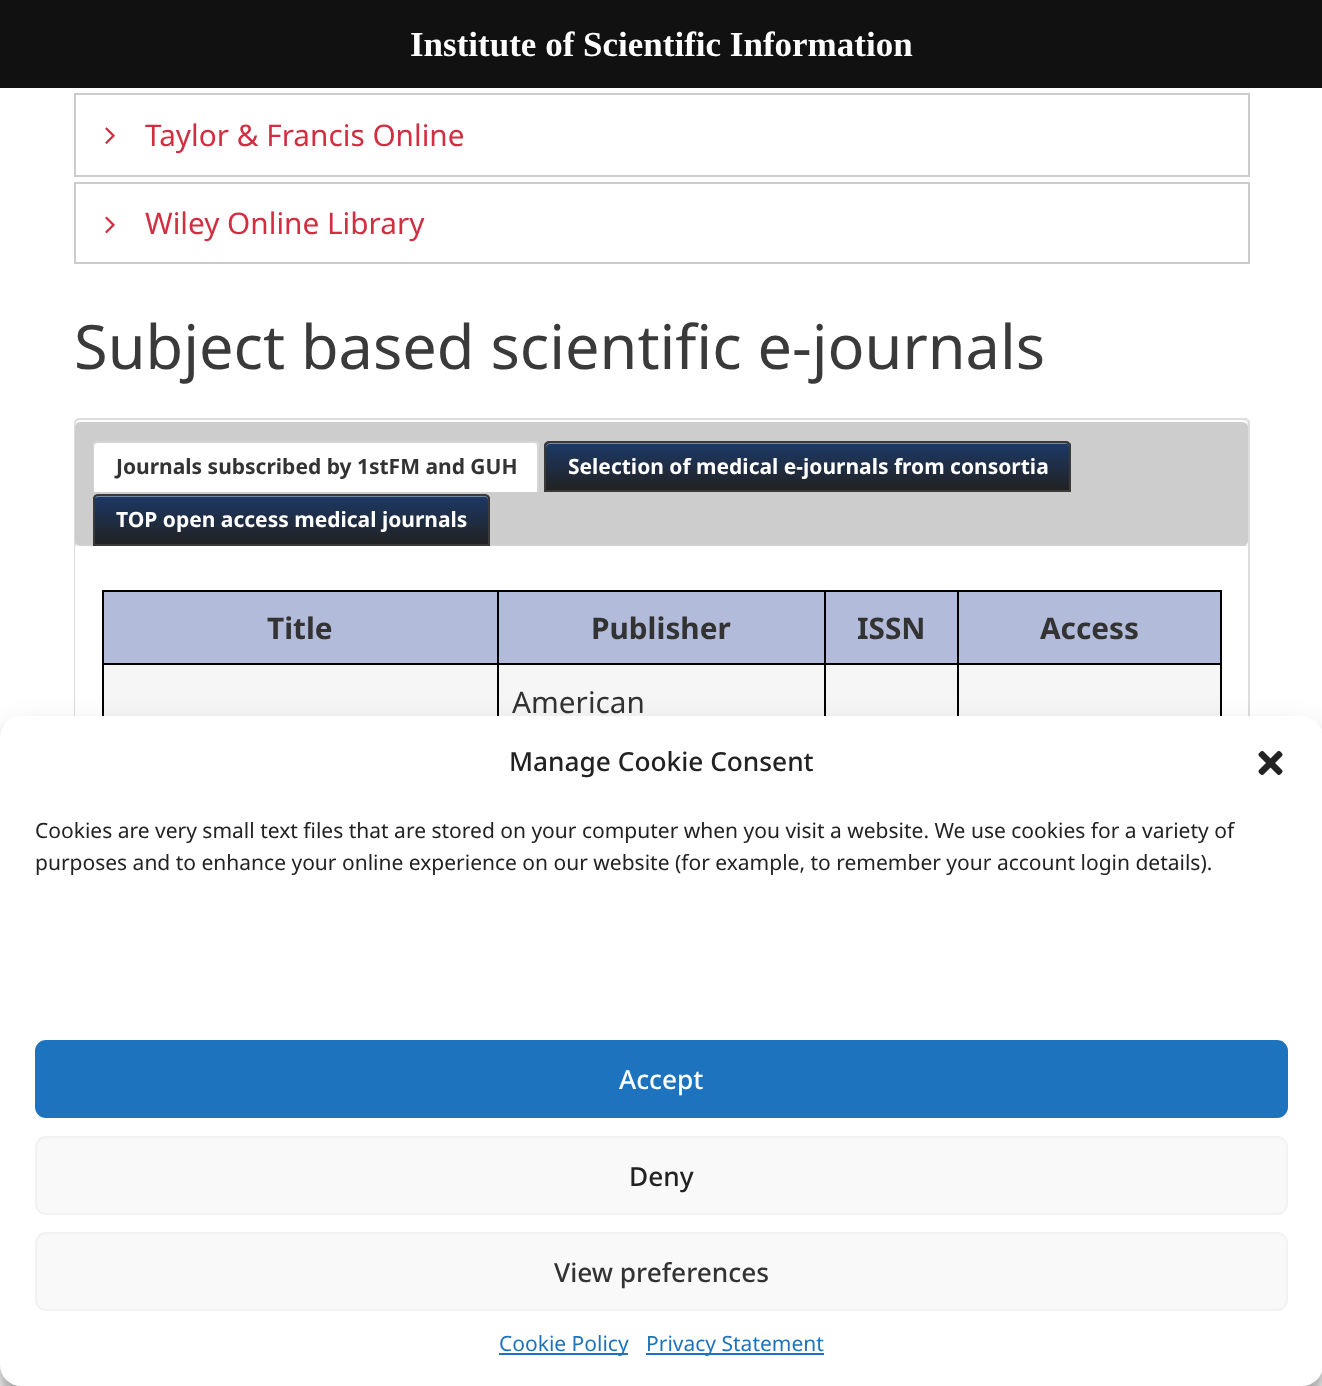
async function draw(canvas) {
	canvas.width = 1322;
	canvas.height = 1386;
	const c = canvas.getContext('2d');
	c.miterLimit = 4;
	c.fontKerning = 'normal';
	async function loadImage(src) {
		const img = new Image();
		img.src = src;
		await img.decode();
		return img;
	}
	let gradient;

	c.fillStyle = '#fff';
	c.fillRect(0, 0, 1322, 1386);
	c.fillStyle = '#111';
	c.fillRect(0, 0, 1322, 88);
	c.font = 'bold 35px Liberation Serif';
	c.fillStyle = '#fff';
	c.fillText('Institute of Scientific Information', 410, 56);
	c.strokeStyle = '#ccc';
	c.lineWidth = 2;
	c.strokeRect(75, 94, 1174, 82);
	c.drawImage(await loadImage('img1.png'), 105, 127, 10, 17);
	c.font = '29.75px Noto Sans';
	c.fillStyle = '#d22d40';
	c.fillText('Taylor & Francis Online', 145, 146);
	c.strokeRect(75, 183, 1174, 80);
	c.drawImage(await loadImage('img2.png'), 105, 216, 10, 18);
	c.fillText('Wiley Online Library', 145, 234);
	c.font = '61.25px Noto Sans';
	c.fillStyle = '#3a3a3a';
	c.fillText('Subject based scientific e-journals', 74, 369);
	c.save();
	c.beginPath();
	c.roundRect(74, 418, 1176, 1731, 5);
	c.clip();
	gradient = c.createLinearGradient(661, 420, 662, 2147);
	gradient.addColorStop(0, '#fff');
	gradient.addColorStop(1, '#d1d1d1');
	c.fillStyle = gradient;
	c.fillRect(74, 420, 1176, 126);
	c.restore();
	c.beginPath();
	c.roundRect(75, 419, 1174, 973, 4);
	c.strokeStyle = '#ddd';
	c.stroke();
	c.fillStyle = '#cdcdcd';
	c.beginPath();
	c.roundRect(75, 420, 1173, 126, 5);
	c.fill();
	c.fillStyle = '#fff';
	c.beginPath();
	c.moveTo(80, 422);
	c.lineTo(1242, 422);
	c.bezierCurveTo(1244, 422, 1247, 423, 1248, 426);
	c.bezierCurveTo(1248, 423, 1246, 420, 1242, 420);
	c.lineTo(80, 420);
	c.bezierCurveTo(77, 420, 75, 423, 75, 426);
	c.bezierCurveTo(76, 423, 78, 422, 80, 422);
	c.closePath();
	c.fill();
	c.fillStyle = '#d1d1d1';
	c.fillRect(79, 544, 1167, 2);
	c.fillStyle = '#fff';
	c.beginPath();
	c.roundRect(93, 441, 446, 51, [5, 5, 0, 0]);
	c.fill();
	c.fillStyle = '#d5d5d5';
	c.beginPath();
	c.moveTo(98, 441);
	c.lineTo(534, 441);
	c.bezierCurveTo(537, 441, 539, 443, 539, 446);
	c.lineTo(539, 492);
	c.lineTo(93, 492);
	c.lineTo(93, 446);
	c.bezierCurveTo(93, 443, 95, 441, 98, 441);
	c.closePath();
	c.moveTo(98, 443);
	c.lineTo(534, 443);
	c.bezierCurveTo(536, 443, 537, 444, 537, 446);
	c.lineTo(537, 492);
	c.lineTo(94, 492);
	c.lineTo(94, 446);
	c.bezierCurveTo(94, 444, 96, 443, 98, 443);
	c.closePath();
	c.fill('evenodd');
	c.font = 'bold 21px Noto Sans';
	c.fillStyle = '#333';
	c.fillText('Journals subscribed by 1stFM and GUH', 116, 474);
	c.save();
	c.beginPath();
	c.roundRect(544, 441, 527, 51, [5, 5, 0, 0]);
	c.clip();
	gradient = c.createLinearGradient(808, 443, 808, 490);
	gradient.addColorStop(0, '#1c3967');
	gradient.addColorStop(1, '#222');
	c.fillStyle = gradient;
	c.fillRect(544, 443, 527, 47);
	c.restore();
	c.fillStyle = '#ffffff66';
	c.beginPath();
	c.moveTo(550, 444);
	c.lineTo(1066, 444);
	c.bezierCurveTo(1068, 444, 1069, 446, 1069, 448);
	c.lineTo(1069, 447);
	c.bezierCurveTo(1069, 445, 1067, 443, 1065, 443);
	c.lineTo(550, 443);
	c.bezierCurveTo(548, 443, 546, 445, 546, 447);
	c.lineTo(546, 448);
	c.bezierCurveTo(546, 446, 548, 444, 550, 444);
	c.closePath();
	c.fill();
	c.beginPath();
	c.roundRect(545, 442, 525, 49, [4, 4, 0, 0]);
	c.strokeStyle = '#3a3a3a';
	c.stroke();
	c.fillStyle = '#fff';
	c.fillText('Selection of medical e-journals from consortia', 568, 474);
	c.save();
	c.beginPath();
	c.roundRect(93, 494, 397, 52, [5, 5, 0, 0]);
	c.clip();
	gradient = c.createLinearGradient(291, 495, 291, 544);
	gradient.addColorStop(0, '#1c3967');
	gradient.addColorStop(1, '#222');
	c.fillStyle = gradient;
	c.fillRect(93, 495, 397, 49);
	c.restore();
	c.fillStyle = '#ffffff66';
	c.beginPath();
	c.moveTo(98, 497);
	c.lineTo(485, 497);
	c.bezierCurveTo(487, 497, 488, 499, 488, 500);
	c.lineTo(488, 499);
	c.bezierCurveTo(488, 497, 486, 495, 484, 495);
	c.lineTo(99, 495);
	c.bezierCurveTo(97, 495, 95, 496, 95, 498);
	c.closePath();
	c.fill();
	c.beginPath();
	c.roundRect(94, 495, 395, 50, [4, 4, 0, 0]);
	c.stroke();
	c.fillStyle = '#fff';
	c.fillText('TOP open access medical journals', 116, 527);
	for (const [x, y, w, h, color] of [
		[75, 546, 1173, 170, '#fff'],
		[102, 590, 1120, 2, '#000'],
		[1220, 590, 2, 126, '#000'],
		[102, 590, 2, 126, '#000'],
		[104, 592, 393, 71, '#b2bbd9'],
	]) {
		c.fillStyle = color;
		c.fillRect(x, y, w, h);
	}
	c.font = 'bold 29.75px Noto Sans';
	c.fillStyle = '#333';
	c.fillText('Title', 267, 639);
	for (const [x, y, w, h, color] of [
		[499, 592, 325, 71, '#b2bbd9'],
		[957, 663, 265, 2, '#000'],
		[104, 665, 1116, 51, '#f6f6f6'],
		[957, 663, 2, 53, '#000'],
		[824, 663, 135, 2, '#000'],
		[824, 663, 2, 53, '#000'],
		[497, 663, 329, 2, '#000'],
		[497, 663, 2, 53, '#000'],
		[102, 663, 397, 2, '#000'],
		[497, 590, 2, 75, '#000'],
	]) {
		c.fillStyle = color;
		c.fillRect(x, y, w, h);
	}
	c.fillStyle = '#333';
	c.fillText('Publisher', 591, 639);
	c.fillStyle = '#b2bbd9';
	c.fillRect(826, 592, 131, 71);
	c.fillStyle = '#000';
	c.fillRect(824, 590, 2, 75);
	c.fillStyle = '#333';
	c.fillText('ISSN', 857, 639);
	c.fillStyle = '#b2bbd9';
	c.fillRect(959, 592, 261, 71);
	c.fillStyle = '#000';
	c.fillRect(957, 590, 2, 75);
	c.fillStyle = '#333';
	c.fillText('Access', 1040, 639);
	c.font = '29.75px Noto Sans';
	c.fillText('American', 512, 713);
	c.fillStyle = '#0000003b';
	c.filter = 'blur(5px)';
	c.beginPath();
	c.roundRect(0, 726, 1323, 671, 21);
	c.fill();
	c.filter = 'none';
	c.fillStyle = '#00000030';
	c.filter = 'blur(17.5px)';
	c.beginPath();
	c.roundRect(0, 733, 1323, 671, 21);
	c.fill();
	c.filter = 'none';
	c.fillStyle = '#fff';
	c.beginPath();
	c.roundRect(0, 716, 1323, 670, 21);
	c.fill();
	c.font = '500 26.25px Noto Sans';
	c.fillStyle = '#222';
	c.fillText('Manage Cookie Consent', 509, 771);
	c.drawImage(await loadImage('img3.png'), 1258, 751, 25, 24);
	c.font = '21px Noto Sans';
	c.fillText('Cookies are very small text files that are stored on your computer when you visit a website. We use cookies for a variety of', 35, 838);
	c.fillText('purposes and to enhance your online experience on our website (for example, to remember your account login details).', 35, 870);
	c.fillStyle = '#1e73be';
	c.beginPath();
	c.roundRect(36, 1041, 1251, 76, 10);
	c.fill();
	c.strokeStyle = '#1e73be';
	c.stroke();
	c.font = '500 26.25px Noto Sans';
	c.fillStyle = '#fff';
	c.fillText('Accept', 619, 1089);
	c.fillStyle = '#f9f9f9';
	c.beginPath();
	c.roundRect(36, 1137, 1251, 77, 10);
	c.fill();
	c.strokeStyle = '#f2f2f2';
	c.stroke();
	c.fillStyle = '#222';
	c.fillText('Deny', 629, 1186);
	c.fillStyle = '#f9f9f9';
	c.beginPath();
	c.roundRect(36, 1233, 1251, 77, 10);
	c.fill();
	c.stroke();
	c.fillStyle = '#333';
	c.fillText('View preferences', 554, 1282);
	c.fillStyle = '#1e73be';
	c.fillRect(499, 1353, 129, 2);
	c.font = '21px Noto Sans';
	c.fillText('Cookie Policy', 499, 1351);
	c.fillRect(646, 1353, 178, 2);
	c.fillText('Privacy Statement', 646, 1351);
}

draw(document.querySelector('canvas'));
